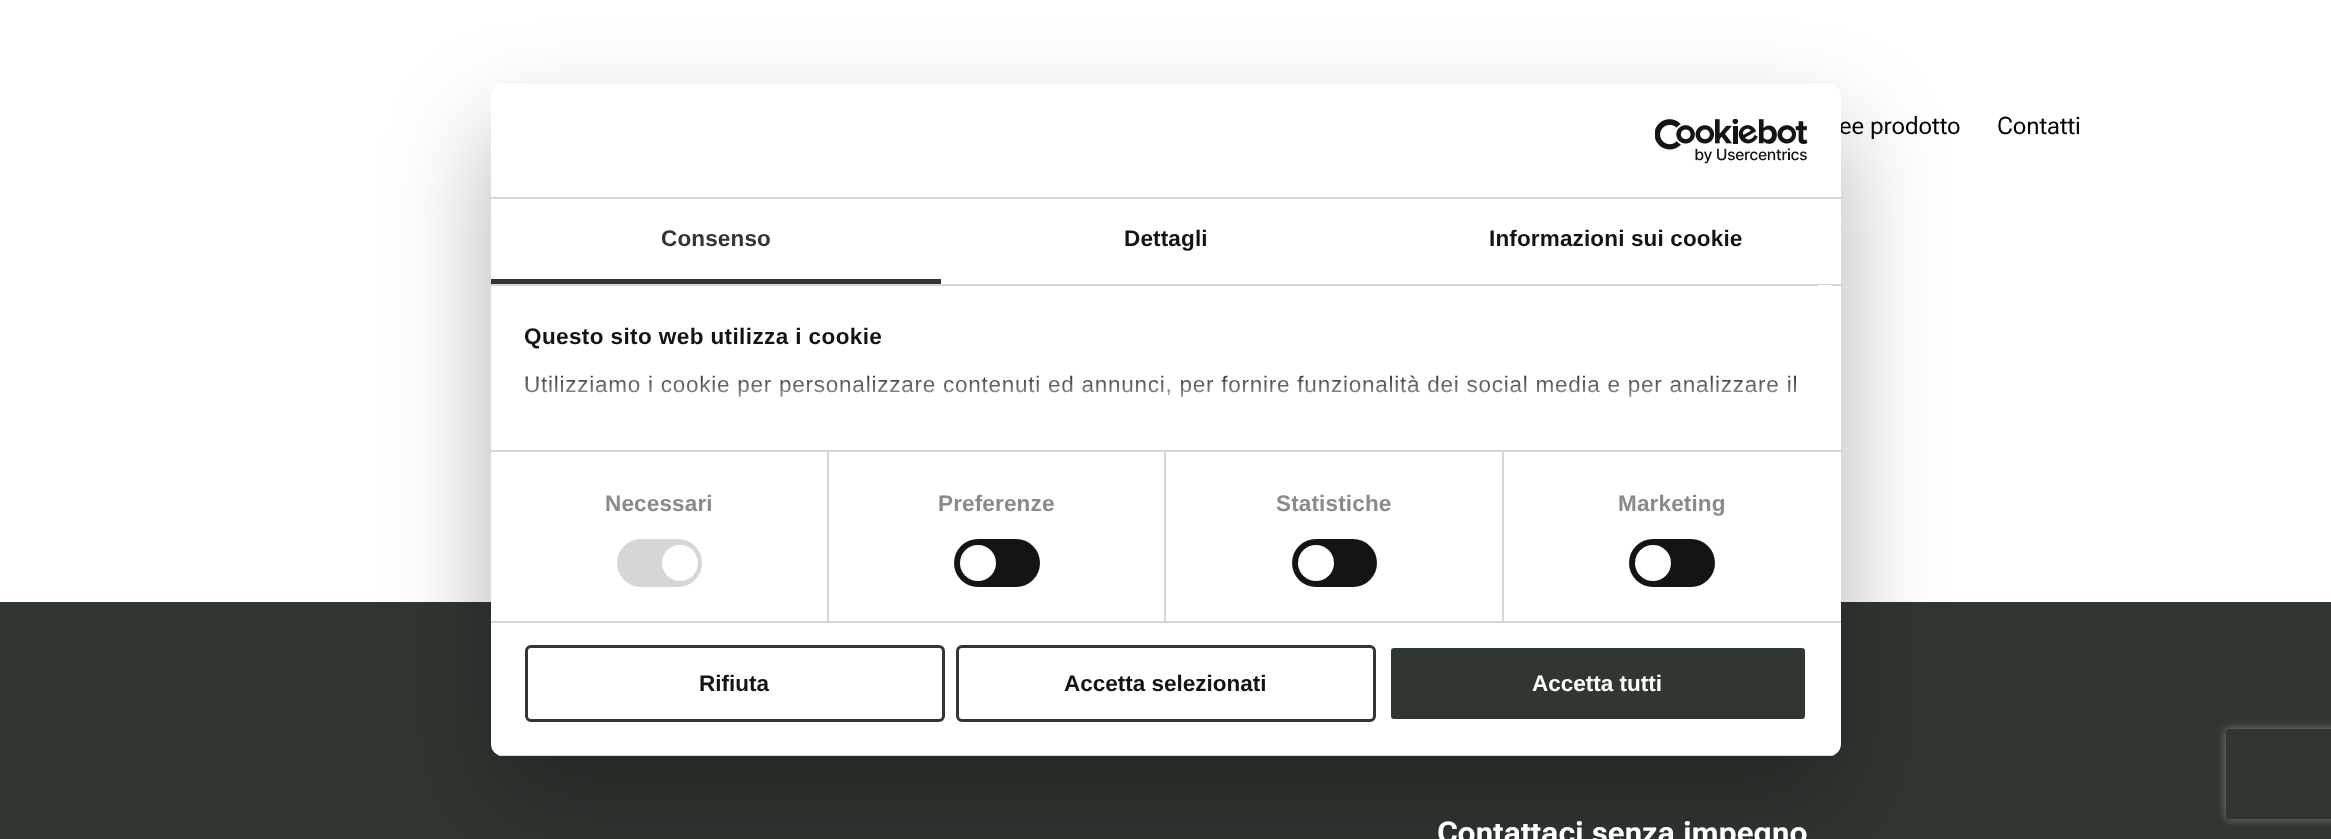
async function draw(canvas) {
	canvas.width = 2331;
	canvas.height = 839;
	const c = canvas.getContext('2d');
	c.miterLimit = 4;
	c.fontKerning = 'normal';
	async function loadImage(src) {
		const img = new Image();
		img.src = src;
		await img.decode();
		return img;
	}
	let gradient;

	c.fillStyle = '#fff';
	c.fillRect(0, 0, 2331, 839);
	c.font = '24px Roboto Flex';
	c.fillStyle = '#000';
	c.fillText('ee prodotto', 1839, 134);
	c.fillText('Contatti', 1997, 134);
	c.fillStyle = '#303731';
	c.fillRect(0, 602, 2331, 237);
	c.fillStyle = '#0000004d';
	c.filter = 'blur(51px)';
	c.beginPath();
	c.roundRect(491, 132, 1350, 672, 12);
	c.fill();
	c.filter = 'none';
	c.fillStyle = '#fff';
	c.beginPath();
	c.roundRect(491, 84, 1350, 672, 12);
	c.fill();
	c.fillStyle = '#d6d6d6';
	c.fillRect(491, 197, 1350, 2);
	c.drawImage(await loadImage('img1.png'), 1655, 119, 153, 45);
	c.fillRect(491, 284, 1350, 2);
	c.fillStyle = '#303731';
	c.fillRect(491, 279, 450, 5);
	c.letterSpacing = '0.15px';
	c.font = 'bold 22.5px Liberation Sans';
	c.fillText('Consenso', 661, 246);
	c.fillStyle = '#141414';
	c.fillText('Dettagli', 1124, 246);
	c.fillText('Informazioni sui cookie', 1489, 246);
	c.fillStyle = '#d6d6d6';
	c.fillRect(491, 450, 1350, 2);
	c.fillStyle = '#fff';
	c.fillRect(1818, 285, 14, 1);
	c.letterSpacing = '0.4px';
	c.fillStyle = '#141414';
	c.fillText('Questo sito web utilizza i cookie', 524, 344);
	c.letterSpacing = '0.75px';
	c.font = '22.5px Liberation Sans';
	c.fillText('Utilizziamo i cookie per personalizzare contenuti ed annunci, per fornire funzionalità dei social media e per analizzare il', 524, 392);
	gradient = c.createLinearGradient(1151, 450, 1151, 368);
	gradient.addColorStop(0, '#fff');
	gradient.addColorStop(0.5, '#ffffffcc');
	gradient.addColorStop(1, '#ffffff00');
	c.fillStyle = gradient;
	c.fillRect(526, 375, 1271, 22);
	c.fillStyle = '#d6d6d6';
	c.fillRect(491, 621, 1350, 2);
	c.fillRect(827, 452, 2, 169);
	c.letterSpacing = '0.15px';
	c.font = 'bold 22.5px Liberation Sans';
	c.fillStyle = '#8a8a8a';
	c.fillText('Necessari', 605, 511);
	c.fillStyle = '#d6d6d6';
	c.beginPath();
	c.roundRect(617, 539, 85, 48, 24);
	c.fill();
	c.fillStyle = '#fff';
	c.beginPath();
	c.arc(680, 563, 18, 0, 2 * Math.PI);
	c.fill();
	c.fillStyle = '#d6d6d6';
	c.fillRect(1164, 452, 2, 169);
	c.fillStyle = '#8a8a8a';
	c.fillText('Preferenze', 938, 511);
	c.fillStyle = '#141414';
	c.beginPath();
	c.roundRect(954, 539, 86, 48, 24);
	c.fill();
	c.fillStyle = '#fff';
	c.beginPath();
	c.arc(978, 563, 18, 0, 2 * Math.PI);
	c.fill();
	c.fillStyle = '#d6d6d6';
	c.fillRect(1502, 452, 2, 169);
	c.fillStyle = '#8a8a8a';
	c.fillText('Statistiche', 1276, 511);
	c.fillStyle = '#141414';
	c.beginPath();
	c.roundRect(1292, 539, 85, 48, 24);
	c.fill();
	c.fillStyle = '#fff';
	c.beginPath();
	c.arc(1316, 563, 18, 0, 2 * Math.PI);
	c.fill();
	c.fillStyle = '#8a8a8a';
	c.fillText('Marketing', 1618, 511);
	c.fillStyle = '#141414';
	c.beginPath();
	c.roundRect(1629, 539, 86, 48, 24);
	c.fill();
	c.fillStyle = '#fff';
	c.beginPath();
	c.arc(1653, 563, 18, 0, 2 * Math.PI);
	c.fill();
	c.save();
	c.beginPath();
	c.roundRect(491, 84, 1350, 672, 12);
	c.clip();
	c.fillStyle = '#d6d6d6';
	c.fillRect(491, 755, 1350, 1);
	c.restore();
	c.beginPath();
	c.roundRect(526.5, 646.5, 417, 74, 4.5);
	c.strokeStyle = '#303731';
	c.lineWidth = 3;
	c.stroke();
	c.letterSpacing = '0px';
	c.fillStyle = '#141414';
	c.fillText('Rifiuta', 699, 691);
	c.beginPath();
	c.roundRect(957.5, 646.5, 417, 74, 4.5);
	c.stroke();
	c.fillText('Accetta selezionati', 1064, 691);
	c.fillStyle = '#303731';
	c.beginPath();
	c.roundRect(1389.5, 646.5, 417, 74, 4.5);
	c.fill();
	c.strokeStyle = '#fff';
	c.stroke();
	c.fillStyle = '#fff';
	c.fillText('Accetta tutti', 1532, 691);
	c.wordSpacing = '1px';
	c.font = 'bold 30px Roboto Flex';
	c.fillText('Contattaci senza impegno', 1437, 843);
	c.save();
	c.beginPath();
	c.moveTo(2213, 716);
	c.lineTo(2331, 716);
	c.lineTo(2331, 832);
	c.lineTo(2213, 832);
	c.closePath();
	c.moveTo(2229, 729);
	c.lineTo(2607, 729);
	c.bezierCurveTo(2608.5, 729, 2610, 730.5, 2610, 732);
	c.lineTo(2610, 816);
	c.bezierCurveTo(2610, 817.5, 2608.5, 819, 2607, 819);
	c.lineTo(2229, 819);
	c.bezierCurveTo(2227.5, 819, 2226, 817.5, 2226, 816);
	c.lineTo(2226, 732);
	c.bezierCurveTo(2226, 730.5, 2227.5, 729, 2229, 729);
	c.closePath();
	c.clip('evenodd');
	c.fillStyle = '#808080';
	c.filter = 'blur(4px)';
	c.beginPath();
	c.roundRect(2226, 729, 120, 90, 3);
	c.fill();
	c.filter = 'none';
	c.restore();
}

draw(document.querySelector('canvas'));
